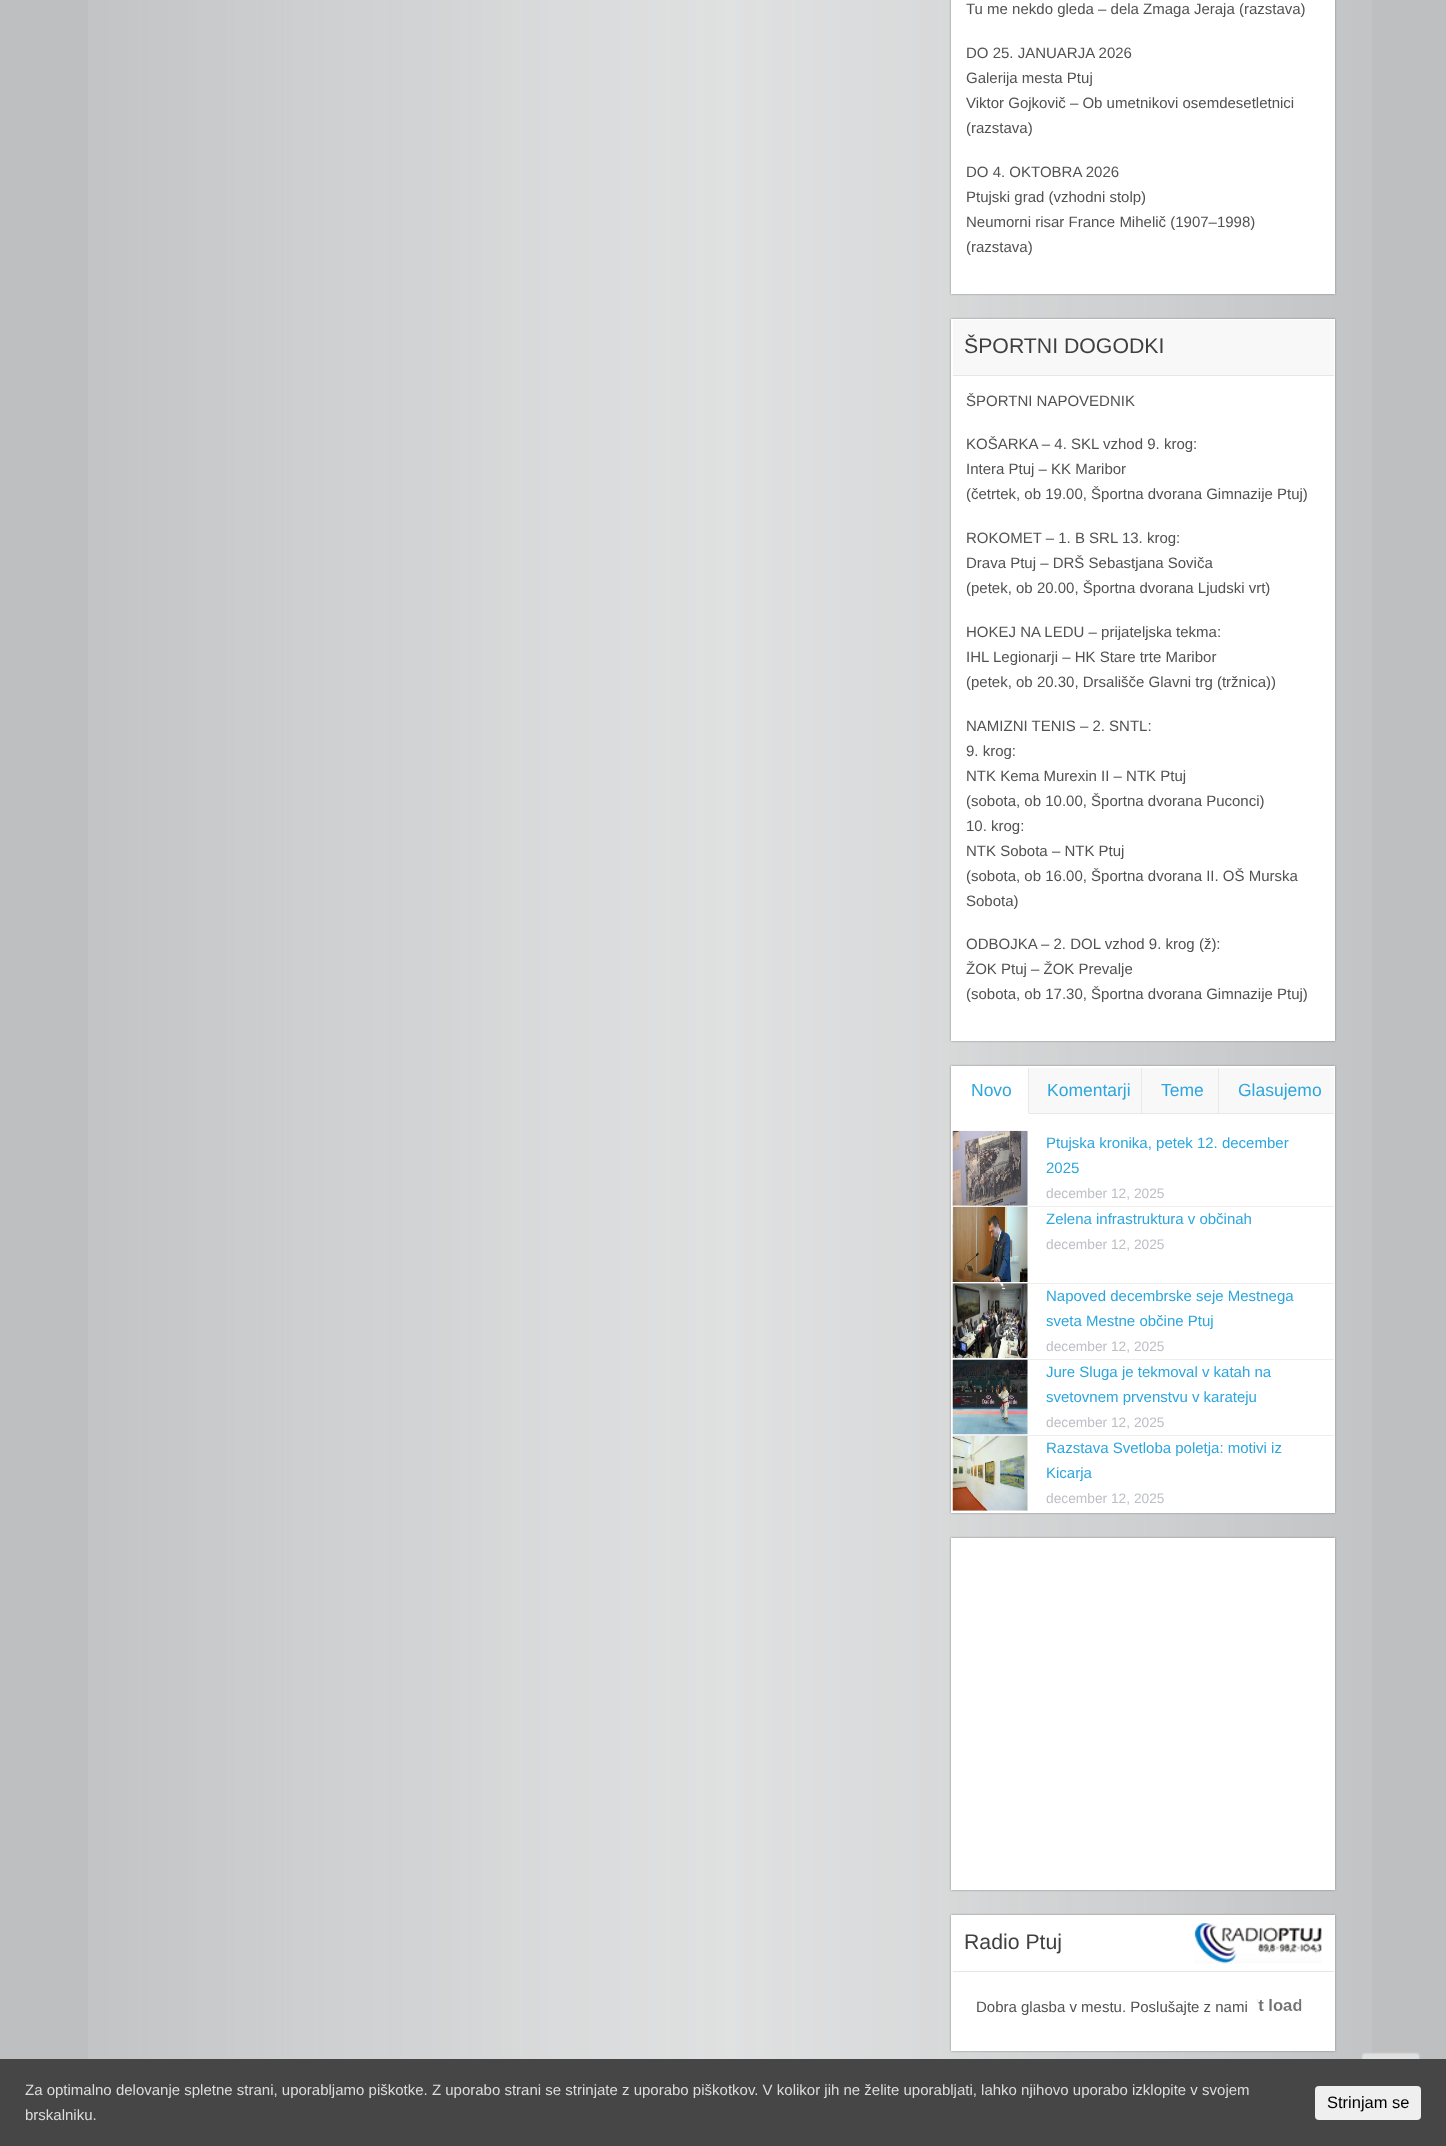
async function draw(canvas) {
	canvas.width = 1446;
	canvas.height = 2146;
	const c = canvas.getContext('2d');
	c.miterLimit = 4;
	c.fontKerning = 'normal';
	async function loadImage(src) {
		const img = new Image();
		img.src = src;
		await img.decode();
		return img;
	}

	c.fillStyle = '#bebfc1';
	c.fillRect(0, 0, 1446, 2146);
	c.drawImage(await loadImage('img1.png'), 88, 0, 1284, 2059);
	c.fillStyle = '#888';
	c.filter = 'blur(1px)';
	c.beginPath();
	c.rect(951, -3, 384, 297);
	c.fill();
	c.filter = 'none';
	c.fillStyle = '#fff';
	c.fillRect(951, 0, 384, 294);
	c.font = '15px Liberation Sans';
	c.fillStyle = '#525252';
	for (const [text, x, y] of [
		['Tu me nekdo gleda – dela Zmaga Jeraja (razstava)', 966, 14],
		['DO 25. JANUARJA 2026', 966, 58],
		['Galerija mesta Ptuj', 966, 83],
		['Viktor Gojkovič – Ob umetnikovi osemdesetletnici', 966, 108],
		['(razstava)', 966, 133],
		['DO 4. OKTOBRA 2026', 966, 177],
		['Ptujski grad (vzhodni stolp)', 966, 202],
		['Neumorni risar France Mihelič (1907–1998)', 966, 227],
		['(razstava)', 966, 252],
	]) {
		c.fillText(text, x, y);
	}
	c.fillStyle = '#888';
	c.filter = 'blur(1px)';
	c.beginPath();
	c.rect(951, 319, 384, 722);
	c.fill();
	c.filter = 'none';
	c.fillStyle = '#fff';
	c.fillRect(951, 319, 384, 722);
	c.fillStyle = '#f8f8f8';
	c.fillRect(953, 320, 381, 55);
	c.font = '21.25px Liberation Sans';
	c.fillStyle = '#404040';
	c.fillText('ŠPORTNI DOGODKI', 964, 353);
	c.fillStyle = '#e6e6e6';
	c.fillRect(953, 375, 381, 1);
	c.font = '15px Liberation Sans';
	c.fillStyle = '#525252';
	for (const [text, x, y] of [
		['ŠPORTNI NAPOVEDNIK', 966, 406],
		['KOŠARKA – 4. SKL vzhod 9. krog:', 966, 449],
		['Intera Ptuj – KK Maribor', 966, 474],
		['(četrtek, ob 19.00, Športna dvorana Gimnazije Ptuj)', 966, 499],
		['ROKOMET – 1. B SRL 13. krog:', 966, 543],
		['Drava Ptuj – DRŠ Sebastjana Soviča', 966, 568],
		['(petek, ob 20.00, Športna dvorana Ljudski vrt)', 966, 593],
		['HOKEJ NA LEDU – prijateljska tekma:', 966, 637],
		['IHL Legionarji – HK Stare trte Maribor', 966, 662],
		['(petek, ob 20.30, Drsališče Glavni trg (tržnica))', 966, 687],
		['NAMIZNI TENIS – 2. SNTL:', 966, 731],
		['9. krog:', 966, 756],
		['NTK Kema Murexin II – NTK Ptuj', 966, 781],
		['(sobota, ob 10.00, Športna dvorana Puconci)', 966, 806],
		['10. krog:', 966, 831],
		['NTK Sobota – NTK Ptuj', 966, 856],
		['(sobota, ob 16.00, Športna dvorana II. OŠ Murska', 966, 881],
		['Sobota)', 966, 906],
		['ODBOJKA – 2. DOL vzhod 9. krog (ž):', 966, 949],
		['ŽOK Ptuj – ŽOK Prevalje', 966, 974],
		['(sobota, ob 17.30, Športna dvorana Gimnazije Ptuj)', 966, 999],
	]) {
		c.fillText(text, x, y);
	}
	c.fillStyle = '#888';
	c.filter = 'blur(1px)';
	c.beginPath();
	c.rect(951, 1066, 384, 447);
	c.fill();
	c.filter = 'none';
	c.fillStyle = '#fff';
	c.fillRect(951, 1066, 384, 447);
	c.fillStyle = '#e8e8e8';
	c.fillRect(1028, 1068, 1, 45);
	c.font = '17.5px Liberation Sans';
	c.fillStyle = '#2da6de';
	c.fillText('Novo', 971, 1096);
	for (const [x, y, w, h, color] of [
		[1029, 1068, 189, 45, '#f8f8f8'],
		[1141, 1068, 1, 46, '#e8e8e8'],
		[1029, 1113, 114, 1, '#e8e8e8'],
	]) {
		c.fillStyle = color;
		c.fillRect(x, y, w, h);
	}
	c.fillStyle = '#2da6de';
	c.fillText('Komentarji', 1047, 1096);
	c.fillStyle = '#e8e8e8';
	c.fillRect(1218, 1068, 1, 46);
	c.fillRect(1143, 1113, 191, 1);
	c.fillStyle = '#2da6de';
	c.fillText('Teme', 1161, 1096);
	c.fillStyle = '#f8f8f8';
	c.fillRect(1219, 1068, 115, 45);
	c.fillStyle = '#2da6de';
	c.fillText('Glasujemo', 1238, 1096);
	c.fillStyle = '#f0eded';
	c.fillRect(953, 1206, 381, 1);
	c.drawImage(await loadImage('img2.png'), 952, 1130, 76, 76);
	c.font = '15px Liberation Sans';
	c.fillStyle = '#2da6de';
	c.fillText('Ptujska kronika, petek 12. december', 1046, 1148);
	c.fillText('2025', 1046, 1173);
	c.font = '13.75px Liberation Sans';
	c.fillStyle = '#bdbfc5';
	c.fillText('december 12, 2025', 1046, 1198);
	c.fillStyle = '#f0eded';
	c.fillRect(953, 1283, 381, 1);
	c.drawImage(await loadImage('img3.png'), 952, 1207, 76, 75);
	c.font = '15px Liberation Sans';
	c.fillStyle = '#2da6de';
	c.fillText('Zelena infrastruktura v občinah', 1046, 1224);
	c.font = '13.75px Liberation Sans';
	c.fillStyle = '#bdbfc5';
	c.fillText('december 12, 2025', 1046, 1249);
	c.fillStyle = '#f0eded';
	c.fillRect(953, 1359, 381, 1);
	c.drawImage(await loadImage('img4.png'), 952, 1283, 76, 76);
	c.font = '15px Liberation Sans';
	c.fillStyle = '#2da6de';
	c.fillText('Napoved decembrske seje Mestnega', 1046, 1301);
	c.fillText('sveta Mestne občine Ptuj', 1046, 1326);
	c.font = '13.75px Liberation Sans';
	c.fillStyle = '#bdbfc5';
	c.fillText('december 12, 2025', 1046, 1351);
	c.fillStyle = '#f0eded';
	c.fillRect(953, 1435, 381, 1);
	c.drawImage(await loadImage('img5.png'), 952, 1359, 76, 76);
	c.font = '15px Liberation Sans';
	c.fillStyle = '#2da6de';
	c.fillText('Jure Sluga je tekmoval v katah na', 1046, 1377);
	c.fillText('svetovnem prvenstvu v karateju', 1046, 1402);
	c.font = '13.75px Liberation Sans';
	c.fillStyle = '#bdbfc5';
	c.fillText('december 12, 2025', 1046, 1427);
	c.drawImage(await loadImage('img6.png'), 952, 1435, 76, 76);
	c.font = '15px Liberation Sans';
	c.fillStyle = '#2da6de';
	c.fillText('Razstava Svetloba poletja: motivi iz', 1046, 1453);
	c.fillText('Kicarja', 1046, 1478);
	c.font = '13.75px Liberation Sans';
	c.fillStyle = '#bdbfc5';
	c.fillText('december 12, 2025', 1046, 1503);
	c.fillStyle = '#888';
	c.filter = 'blur(1px)';
	c.beginPath();
	c.rect(951, 1538, 384, 352);
	c.fill();
	c.filter = 'none';
	c.fillStyle = '#fff';
	c.fillRect(951, 1538, 384, 352);
	c.fillStyle = '#888';
	c.filter = 'blur(1px)';
	c.beginPath();
	c.rect(951, 1915, 384, 136);
	c.fill();
	c.filter = 'none';
	c.fillStyle = '#fff';
	c.fillRect(951, 1915, 384, 136);
	c.drawImage(await loadImage('img7.png'), 1194, 1923, 128, 41);
	c.font = '21.25px Liberation Sans';
	c.fillStyle = '#404040';
	c.fillText('Radio Ptuj', 964, 1949);
	c.fillStyle = '#e6e6e6';
	c.fillRect(953, 1971, 381, 1);
	c.font = '15px Liberation Sans';
	c.fillStyle = '#525252';
	c.fillText('Dobra glasba v mestu. Poslušajte z nami', 976, 2012);
	c.drawImage(await loadImage('img8.png'), 1257, 1999, 45, 12);
	c.fillStyle = '#464646';
	c.fillRect(0, 2059, 1446, 87);
	c.fillStyle = '#ddd';
	c.fillText('Za optimalno delovanje spletne strani, uporabljamo piškotke. Z uporabo strani se strinjate z uporabo piškotkov. V kolikor jih ne želite uporabljati, lahko njihovo uporabo izklopite v svojem', 25, 2095);
	c.fillText('brskalniku.', 25, 2120);
	c.fillStyle = '#efefef';
	c.beginPath();
	c.roundRect(1315, 2086, 106, 34, 4);
	c.fill();
	c.font = '16.5px Liberation Sans';
	c.fillStyle = '#000';
	c.fillText('Strinjam se', 1327, 2108);
	c.drawImage(await loadImage('img9.png'), 1360, 2052, 60, 7);
}

draw(document.querySelector('canvas'));
